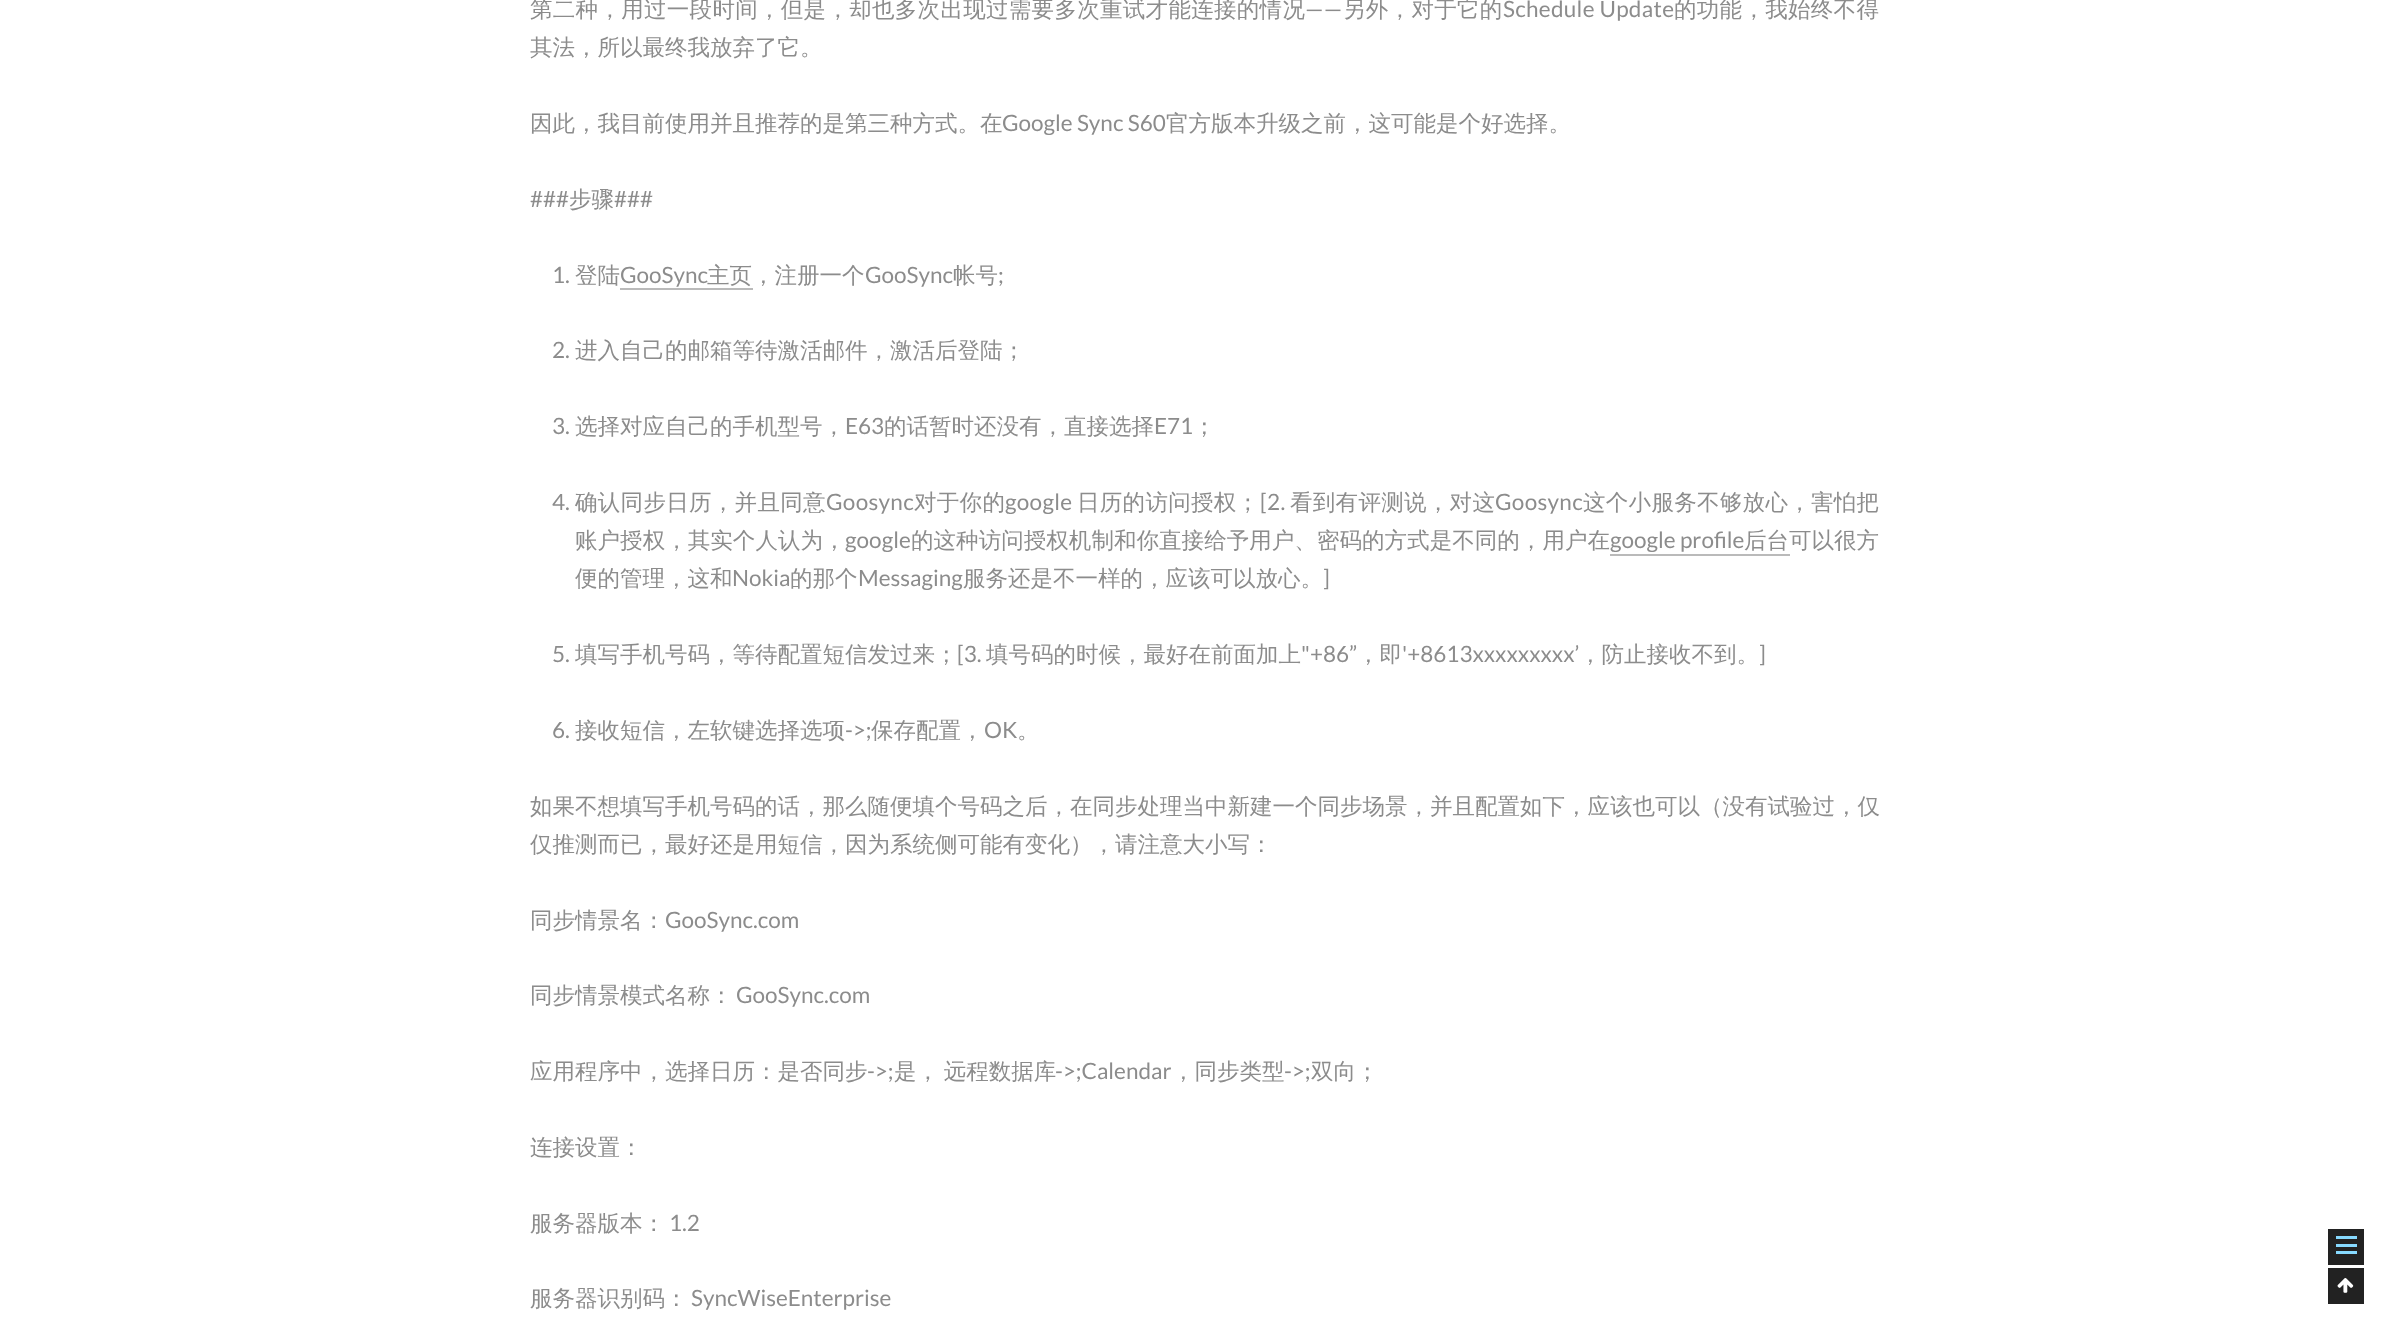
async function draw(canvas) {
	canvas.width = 2408;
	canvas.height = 1331;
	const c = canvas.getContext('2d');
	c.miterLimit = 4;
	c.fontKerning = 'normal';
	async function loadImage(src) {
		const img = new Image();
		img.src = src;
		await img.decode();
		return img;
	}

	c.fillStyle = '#fff';
	c.fillRect(0, 0, 2408, 1331);
	c.letterSpacing = '0.3px';
	c.font = '500 22.5px WenQuanYi Zen Hei';
	c.fillStyle = '#8c8c8c';
	c.fillText('第二种，用过一段时间，但是，却也多次出现过需要多次重试才能连接的情况', 530, 17);
	c.font = '22.5px Lato';
	c.fillText('——', 1305, 17);
	c.font = '500 22.5px WenQuanYi Zen Hei';
	c.fillText('另外，对于它的', 1343, 17);
	c.font = '22.5px Lato';
	c.fillText('Schedule Update', 1503, 17);
	c.font = '500 22.5px WenQuanYi Zen Hei';
	c.fillText('的功能，我始终不得', 1674, 17);
	c.letterSpacing = '0px';
	c.fillText('其法，所以最终我放弃了它。', 530, 55);
	c.fillText('因此，我目前使用并且推荐的是第三种方式。在', 530, 131);
	c.font = '22.5px Lato';
	c.fillText('Google Sync S60', 1002, 131);
	c.font = '500 22.5px WenQuanYi Zen Hei';
	c.fillText('官方版本升级之前，这可能是个好选择。', 1166, 131);
	c.font = '22.5px Lato';
	c.fillText('###', 530, 207);
	c.font = '500 22.5px WenQuanYi Zen Hei';
	c.fillText('步骤', 569, 207);
	c.font = '22.5px Lato';
	c.fillText('###', 614, 207);
	c.fillText('1.', 552, 283);
	c.font = '500 22.5px WenQuanYi Zen Hei';
	c.fillText('登陆', 575, 283);
	c.font = '22.5px Lato';
	c.fillText('GooSync', 620, 283);
	c.fillStyle = '#bababa';
	c.fillRect(620, 288, 133, 2);
	c.font = '500 22.5px WenQuanYi Zen Hei';
	c.fillStyle = '#8c8c8c';
	c.fillText('主页，注册一个', 707, 283);
	c.font = '22.5px Lato';
	c.fillText('GooSync', 865, 283);
	c.font = '500 22.5px WenQuanYi Zen Hei';
	c.fillText('帐号', 953, 283);
	c.font = '22.5px Lato';
	c.fillText(';', 998, 283);
	c.fillText('2.', 552, 358);
	c.font = '500 22.5px WenQuanYi Zen Hei';
	c.fillText('进入自己的邮箱等待激活邮件，激活后登陆；', 575, 358);
	c.font = '22.5px Lato';
	c.fillText('3.', 552, 434);
	c.font = '500 22.5px WenQuanYi Zen Hei';
	c.fillText('选择对应自己的手机型号，', 575, 434);
	c.font = '22.5px Lato';
	c.fillText('E63', 845, 434);
	c.font = '500 22.5px WenQuanYi Zen Hei';
	c.fillText('的话暂时还没有，直接选择', 884, 434);
	c.font = '22.5px Lato';
	c.fillText('E71', 1154, 434);
	c.font = '500 22.5px WenQuanYi Zen Hei';
	c.fillText('；', 1193, 434);
	c.font = '22.5px Lato';
	c.fillText('4.', 552, 510);
	c.letterSpacing = '0.3px';
	c.font = '500 22.5px WenQuanYi Zen Hei';
	c.fillText('确认同步日历，并且同意', 575, 510);
	c.font = '22.5px Lato';
	c.fillText('Goosync', 826, 510);
	c.font = '500 22.5px WenQuanYi Zen Hei';
	c.fillText('对于你的', 914, 510);
	c.font = '22.5px Lato';
	c.fillText('google', 1005, 510);
	c.font = '500 22.5px WenQuanYi Zen Hei';
	c.fillText('日历的访问授权；', 1077, 510);
	c.font = '22.5px Lato';
	c.fillText('[2.', 1260, 510);
	c.font = '500 22.5px WenQuanYi Zen Hei';
	c.fillText('看到有评测说，对这', 1290, 510);
	c.font = '22.5px Lato';
	c.fillText('Goosync', 1495, 510);
	c.font = '500 22.5px WenQuanYi Zen Hei';
	c.fillText('这个小服务不够放心，害怕把', 1583, 510);
	c.letterSpacing = '0.05px';
	c.fillText('账户授权，其实个人认为，', 575, 548);
	c.font = '22.5px Lato';
	c.fillText('google', 845, 548);
	c.font = '500 22.5px WenQuanYi Zen Hei';
	c.fillText('的这种访问授权机制和你直接给予用户、密码的方式是不同的，用户在', 911, 548);
	c.letterSpacing = '0px';
	c.font = '22.5px Lato';
	c.fillText('google profile', 1610, 548);
	c.fillStyle = '#bababa';
	c.fillRect(1610, 554, 180, 2);
	c.font = '500 22.5px WenQuanYi Zen Hei';
	c.fillStyle = '#8c8c8c';
	c.fillText('后台可以很方', 1744, 548);
	c.fillText('便的管理，这和', 575, 586);
	c.font = '22.5px Lato';
	c.fillText('Nokia', 732, 586);
	c.font = '500 22.5px WenQuanYi Zen Hei';
	c.fillText('的那个', 790, 586);
	c.font = '22.5px Lato';
	c.fillText('Messaging', 858, 586);
	c.font = '500 22.5px WenQuanYi Zen Hei';
	c.fillText('服务还是不一样的，应该可以放心。', 963, 586);
	c.font = '22.5px Lato';
	c.fillText(']', 1323, 586);
	c.fillText('5.', 552, 662);
	c.font = '500 22.5px WenQuanYi Zen Hei';
	c.fillText('填写手机号码，等待配置短信发过来；', 575, 662);
	c.font = '22.5px Lato';
	c.fillText('[3.', 957, 662);
	c.font = '500 22.5px WenQuanYi Zen Hei';
	c.fillText('填号码的时候，最好在前面加上', 986, 662);
	c.font = '22.5px Lato';
	c.fillText('"+86”', 1301, 662);
	c.font = '500 22.5px WenQuanYi Zen Hei';
	c.fillText('，即', 1357, 662);
	c.font = '22.5px Lato';
	c.fillText('\'+8613xxxxxxxxx’', 1402, 662);
	c.font = '500 22.5px WenQuanYi Zen Hei';
	c.fillText('，防止接收不到。', 1579, 662);
	c.font = '22.5px Lato';
	c.fillText(']', 1759, 662);
	c.fillText('6.', 552, 738);
	c.font = '500 22.5px WenQuanYi Zen Hei';
	c.fillText('接收短信，左软键选择选项', 575, 738);
	c.font = '22.5px Lato';
	c.fillText('->;', 845, 738);
	c.font = '500 22.5px WenQuanYi Zen Hei';
	c.fillText('保存配置，', 871, 738);
	c.font = '22.5px Lato';
	c.fillText('OK', 984, 738);
	c.font = '500 22.5px WenQuanYi Zen Hei';
	for (const [text, x, y] of [
		['。', 1017, 738],
		['如果不想填写手机号码的话，那么随便填个号码之后，在同步处理当中新建一个同步场景，并且配置如下，应该也可以（没有试验过，仅', 530, 814],
		['仅推测而已，最好还是用短信，因为系统侧可能有变化），请注意大小写：', 530, 852],
		['同步情景名：', 530, 928],
	]) {
		c.fillText(text, x, y);
	}
	c.font = '22.5px Lato';
	c.fillText('GooSync.com', 665, 928);
	c.font = '500 22.5px WenQuanYi Zen Hei';
	c.fillText('同步情景模式名称：', 530, 1003);
	c.font = '22.5px Lato';
	c.fillText('GooSync.com', 736, 1003);
	c.font = '500 22.5px WenQuanYi Zen Hei';
	c.fillText('应用程序中，选择日历：是否同步', 530, 1079);
	c.font = '22.5px Lato';
	c.fillText('->;', 867, 1079);
	c.wordSpacing = '-2px';
	c.font = '500 22.5px WenQuanYi Zen Hei';
	c.fillText('是， 远程数据库', 894, 1079);
	c.wordSpacing = '0px';
	c.font = '22.5px Lato';
	c.fillText('->;Calendar', 1055, 1079);
	c.font = '500 22.5px WenQuanYi Zen Hei';
	c.fillText('，同步类型', 1172, 1079);
	c.font = '22.5px Lato';
	c.fillText('->;', 1284, 1079);
	c.font = '500 22.5px WenQuanYi Zen Hei';
	for (const [text, x, y] of [
		['双向；', 1311, 1079],
		['连接设置：', 530, 1155],
		['服务器版本：', 530, 1231],
	]) {
		c.fillText(text, x, y);
	}
	c.font = '22.5px Lato';
	c.fillText('1.2', 669, 1231);
	c.font = '500 22.5px WenQuanYi Zen Hei';
	c.fillText('服务器识别码：', 530, 1306);
	c.font = '22.5px Lato';
	c.fillText('SyncWiseEnterprise', 691, 1306);
	for (const [x, y, w, h, color] of [
		[2328, 1229, 36, 36, '#222'],
		[2336, 1236, 21, 3, '#87daff'],
		[2336, 1244, 21, 3, '#87daff'],
		[2336, 1251, 21, 3, '#87daff'],
		[2328, 1268, 36, 36, '#222'],
	]) {
		c.fillStyle = color;
		c.fillRect(x, y, w, h);
	}
	c.drawImage(await loadImage('img1.png'), 2337, 1278, 17, 15);
}

draw(document.querySelector('canvas'));
